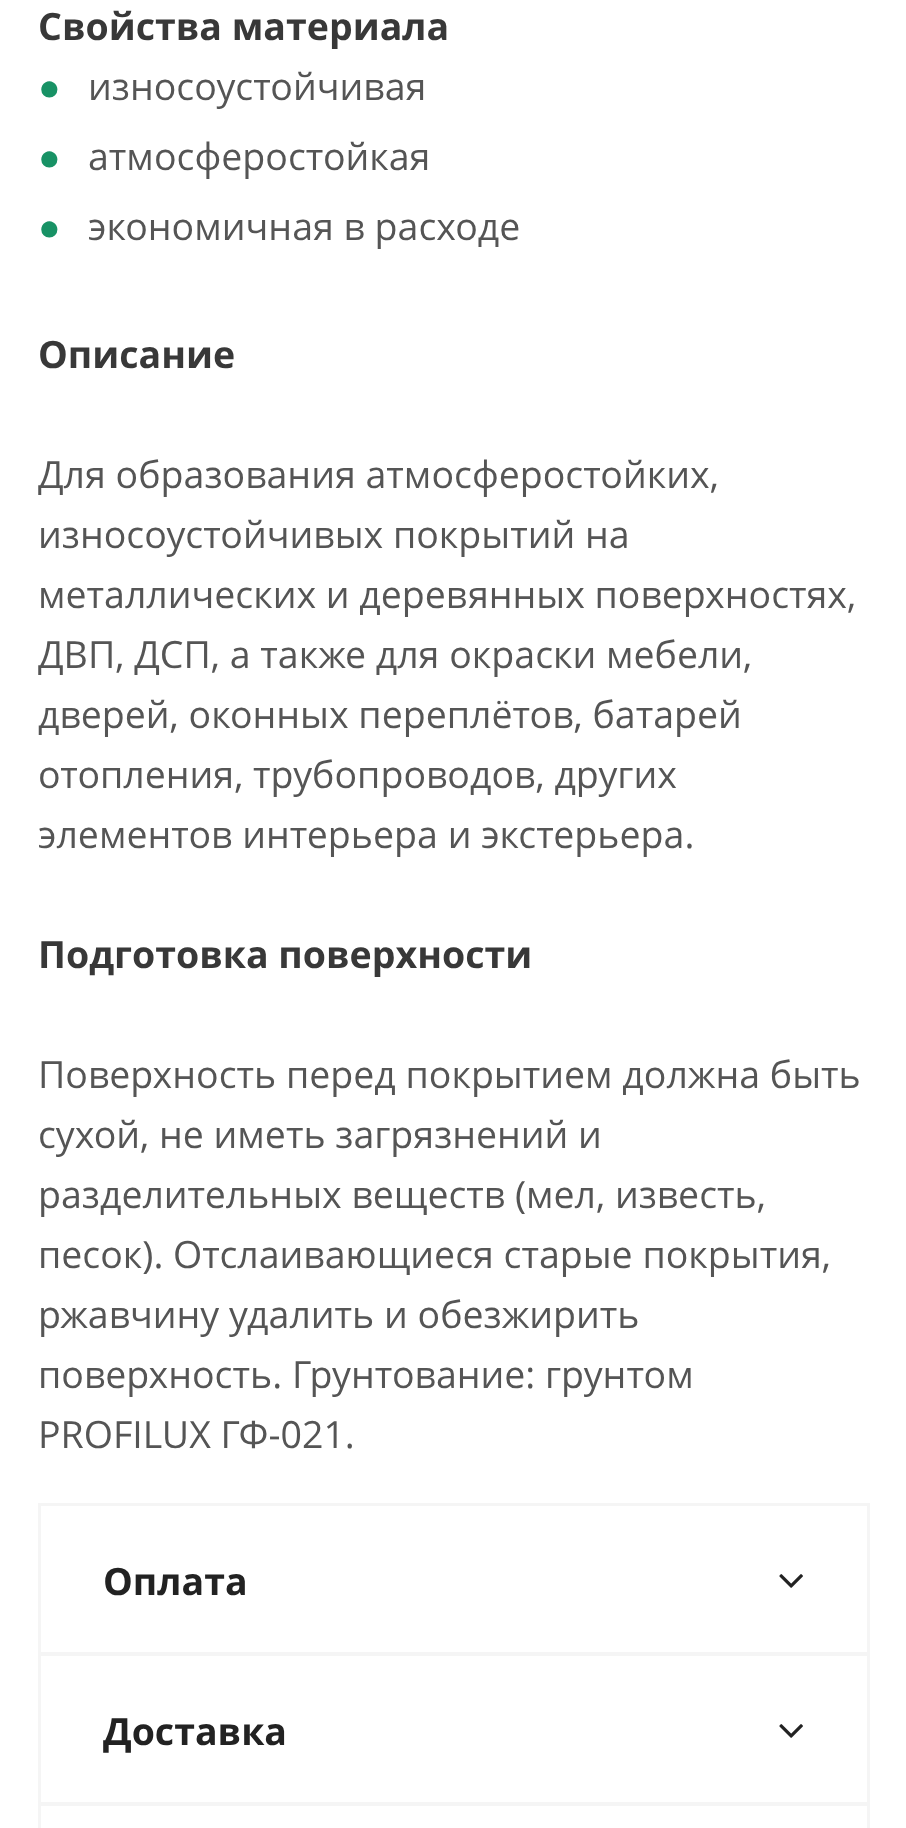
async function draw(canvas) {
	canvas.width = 906;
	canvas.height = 1828;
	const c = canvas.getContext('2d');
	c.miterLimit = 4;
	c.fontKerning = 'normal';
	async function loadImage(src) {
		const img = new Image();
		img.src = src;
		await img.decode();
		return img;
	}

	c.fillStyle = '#fff';
	c.fillRect(0, 0, 906, 1828);
	c.font = 'bold 37.5px Open Sans';
	c.fillStyle = '#383838';
	c.fillText('Свойства материала', 38, 40);
	c.font = '37.5px Liberation Sans';
	c.fillStyle = '#189265';
	c.fillText('●', 38, 100);
	c.font = '37.5px Open Sans';
	c.fillStyle = '#555';
	c.fillText('износоустойчивая', 88, 100);
	c.font = '37.5px Liberation Sans';
	c.fillStyle = '#189265';
	c.fillText('●', 38, 170);
	c.font = '37.5px Open Sans';
	c.fillStyle = '#555';
	c.fillText('атмосферостойкая', 88, 170);
	c.font = '37.5px Liberation Sans';
	c.fillStyle = '#189265';
	c.fillText('●', 38, 240);
	c.font = '37.5px Open Sans';
	c.fillStyle = '#555';
	c.fillText('экономичная в расходе', 88, 240);
	c.font = 'bold 37.5px Open Sans';
	c.fillStyle = '#383838';
	c.fillText('Описание', 38, 368);
	c.font = '37.5px Open Sans';
	c.fillStyle = '#555';
	for (const [text, x, y] of [
		['Для образования атмосферостойких,', 38, 488],
		['износоустойчивых покрытий на', 38, 548],
		['металлических и деревянных поверхностях,', 38, 608],
		['ДВП, ДСП, а также для окраски мебели,', 38, 668],
		['дверей, оконных переплётов, батарей', 38, 728],
		['отопления, трубопроводов, других', 38, 788],
		['элементов интерьера и экстерьера.', 38, 848],
	]) {
		c.fillText(text, x, y);
	}
	c.font = 'bold 37.5px Open Sans';
	c.fillStyle = '#383838';
	c.fillText('Подготовка поверхности', 38, 968);
	c.font = '37.5px Open Sans';
	c.fillStyle = '#555';
	for (const [text, x, y] of [
		['Поверхность перед покрытием должна быть', 38, 1088],
		['сухой, не иметь загрязнений и', 38, 1148],
		['разделительных веществ (мел, известь,', 38, 1208],
		['песок). Отслаивающиеся старые покрытия,', 38, 1268],
		['ржавчину удалить и обезжирить', 38, 1328],
		['поверхность. Грунтование: грунтом', 38, 1388],
		['PROFILUX ГФ-021.', 38, 1448],
	]) {
		c.fillText(text, x, y);
	}
	c.strokeStyle = '#f5f5f5';
	c.lineWidth = 3;
	c.strokeRect(39.5, 1504.5, 829, 149);
	c.font = 'bold 37.5px Open Sans';
	c.fillStyle = '#222';
	c.fillText('Оплата', 103, 1595);
	c.drawImage(await loadImage('img1.png'), 779, 1574, 24, 14);
	c.strokeRect(39.5, 1654.5, 829, 149);
	c.fillText('Доставка', 103, 1745);
	c.drawImage(await loadImage('img1.png'), 779, 1724, 24, 14);
	c.strokeRect(39.5, 1804.5, 829, 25);
}

draw(document.querySelector('canvas'));
